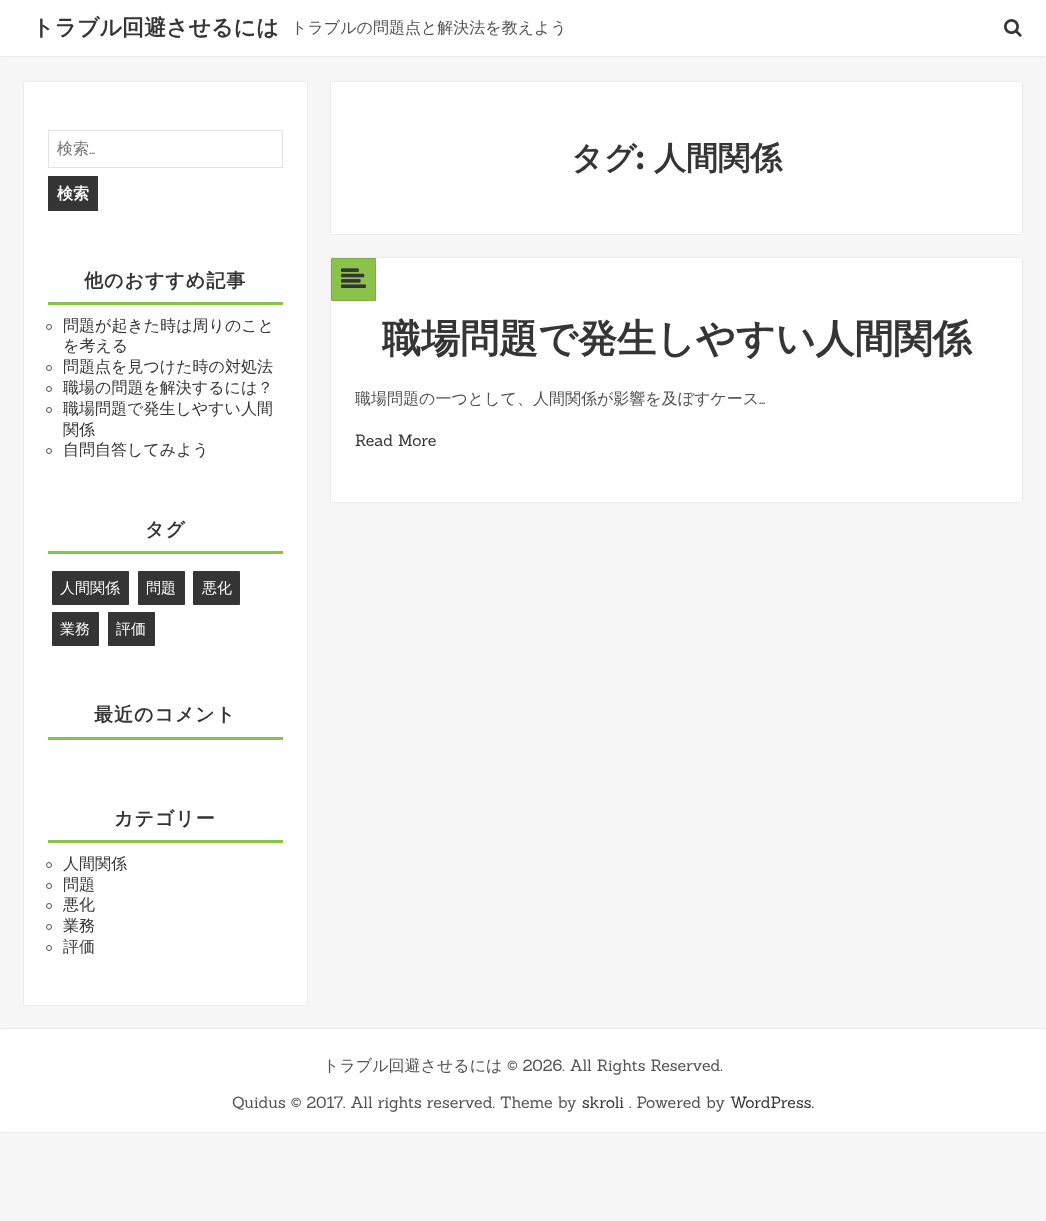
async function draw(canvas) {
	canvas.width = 1046;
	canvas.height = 1221;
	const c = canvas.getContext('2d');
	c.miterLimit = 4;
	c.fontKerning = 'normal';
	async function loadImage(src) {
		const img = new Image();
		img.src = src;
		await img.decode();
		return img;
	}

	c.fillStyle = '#f7f7f7';
	c.fillRect(0, 0, 1046, 1221);
	c.fillStyle = '#32323226';
	c.filter = 'blur(1px)';
	c.beginPath();
	c.rect(0, 0, 1046, 56);
	c.fill();
	c.filter = 'none';
	c.fillStyle = '#fff';
	c.fillRect(0, 0, 1046, 56);
	c.font = 'bold 22px WenQuanYi Zen Hei';
	c.fillStyle = '#353535';
	c.fillText('トラブル回避させるには', 32, 35);
	c.font = '500 16px WenQuanYi Zen Hei';
	c.fillStyle = '#515151';
	c.fillText('トラブルの問題点と解決法を教えよう', 291, 33);
	c.drawImage(await loadImage('img1.png'), 1004, 19, 18, 18);
	c.fillStyle = '#32323226';
	c.filter = 'blur(1px)';
	c.beginPath();
	c.rect(24, 82, 283, 923);
	c.fill();
	c.filter = 'none';
	c.fillStyle = '#fff';
	c.fillRect(24, 82, 283, 923);
	c.strokeStyle = '#e2e2e2';
	c.strokeRect(48.5, 130.5, 234, 37);
	c.fillStyle = '#757575';
	c.fillText('検索', 57, 154);
	c.font = '16px Sanchez';
	c.fillText('…', 89, 154);
	c.fillStyle = '#353535';
	c.fillRect(48, 176, 50, 35);
	c.font = 'bold 16px WenQuanYi Zen Hei';
	c.fillStyle = '#fcfcfc';
	c.fillText('検索', 57, 199);
	c.fillStyle = '#8bc34a';
	c.fillRect(48, 302, 235, 3);
	c.letterSpacing = '1px';
	c.font = 'bold 19px WenQuanYi Zen Hei';
	c.fillStyle = '#353535';
	c.fillText('他のおすすめ記事', 84, 287);
	c.beginPath();
	c.arc(49, 327, 2.5, 0, 2 * Math.PI);
	c.strokeStyle = '#515151';
	c.stroke();
	c.letterSpacing = '0px';
	c.font = '500 16px WenQuanYi Zen Hei';
	c.fillText('問題が起きた時は周りのこと', 63, 331);
	c.fillText('を考える', 63, 351);
	c.beginPath();
	c.arc(49, 368, 2.5, 0, 2 * Math.PI);
	c.stroke();
	c.fillText('問題点を見つけた時の対処法', 63, 372);
	c.beginPath();
	c.arc(49, 389, 2.5, 0, 2 * Math.PI);
	c.stroke();
	c.fillText('職場の問題を解決するには？', 63, 393);
	c.beginPath();
	c.arc(49, 410, 2.5, 0, 2 * Math.PI);
	c.stroke();
	c.fillText('職場問題で発生しやすい人間', 63, 414);
	c.fillText('関係', 63, 435);
	c.beginPath();
	c.arc(49, 451, 2.5, 0, 2 * Math.PI);
	c.stroke();
	c.fillText('自問自答してみよう', 63, 455);
	c.fillStyle = '#8bc34a';
	c.fillRect(48, 551, 235, 3);
	c.letterSpacing = '1px';
	c.font = 'bold 19px WenQuanYi Zen Hei';
	c.fillStyle = '#353535';
	c.fillText('タグ', 145, 536);
	c.beginPath();
	c.roundRect(52, 571, 77, 34, 1);
	c.fill();
	c.strokeStyle = '#3c3c3c26';
	c.strokeRect(52.5, 571.5, 76, 33);
	c.letterSpacing = '0px';
	c.font = '500 15px WenQuanYi Zen Hei';
	c.fillStyle = '#fcfcfc';
	c.fillText('人間関係', 60, 593);
	c.fillStyle = '#353535';
	c.beginPath();
	c.roundRect(138, 571, 47, 34, 1);
	c.fill();
	c.strokeRect(138.5, 571.5, 46, 33);
	c.fillStyle = '#fcfcfc';
	c.fillText('問題', 146, 593);
	c.fillStyle = '#353535';
	c.beginPath();
	c.roundRect(193, 571, 47, 34, 1);
	c.fill();
	c.strokeRect(193.5, 571.5, 46, 33);
	c.fillStyle = '#fcfcfc';
	c.fillText('悪化', 202, 593);
	c.fillStyle = '#353535';
	c.beginPath();
	c.roundRect(52, 612, 47, 34, 1);
	c.fill();
	c.strokeRect(52.5, 612.5, 46, 33);
	c.fillStyle = '#fcfcfc';
	c.fillText('業務', 60, 634);
	c.fillStyle = '#353535';
	c.beginPath();
	c.roundRect(108, 612, 47, 34, 1);
	c.fill();
	c.strokeRect(108.5, 612.5, 46, 33);
	c.fillStyle = '#fcfcfc';
	c.fillText('評価', 116, 634);
	c.fillStyle = '#8bc34a';
	c.fillRect(48, 737, 235, 3);
	c.letterSpacing = '1px';
	c.font = 'bold 19px WenQuanYi Zen Hei';
	c.fillStyle = '#353535';
	c.fillText('最近のコメント', 94, 721);
	c.fillStyle = '#8bc34a';
	c.fillRect(48, 840, 235, 3);
	c.fillStyle = '#353535';
	c.fillText('カテゴリー', 114, 825);
	c.beginPath();
	c.arc(49, 865, 2.5, 0, 2 * Math.PI);
	c.strokeStyle = '#515151';
	c.stroke();
	c.letterSpacing = '0px';
	c.font = '500 16px WenQuanYi Zen Hei';
	c.fillText('人間関係', 63, 869);
	c.beginPath();
	c.arc(49, 886, 2.5, 0, 2 * Math.PI);
	c.stroke();
	c.fillText('問題', 63, 890);
	c.beginPath();
	c.arc(49, 906, 2.5, 0, 2 * Math.PI);
	c.stroke();
	c.fillText('悪化', 63, 910);
	c.beginPath();
	c.arc(49, 927, 2.5, 0, 2 * Math.PI);
	c.stroke();
	c.fillText('業務', 63, 931);
	c.beginPath();
	c.arc(49, 948, 2.5, 0, 2 * Math.PI);
	c.stroke();
	c.fillText('評価', 63, 952);
	c.fillStyle = '#32323226';
	c.filter = 'blur(1px)';
	c.beginPath();
	c.rect(331, 82, 691, 152);
	c.fill();
	c.filter = 'none';
	c.fillStyle = '#fff';
	c.fillRect(331, 82, 691, 152);
	c.font = 'bold 32px WenQuanYi Zen Hei';
	c.fillStyle = '#353535';
	c.fillText('タグ', 571, 169);
	c.font = 'bold 32px Montserrat';
	c.fillText(':', 636, 169);
	c.font = 'bold 32px WenQuanYi Zen Hei';
	c.fillText('人間関係', 654, 169);
	c.fillStyle = '#32323226';
	c.filter = 'blur(1px)';
	c.beginPath();
	c.rect(331, 258, 691, 244);
	c.fill();
	c.filter = 'none';
	c.fillStyle = '#fff';
	c.fillRect(331, 258, 691, 244);
	c.fillStyle = '#8bc34a';
	c.beginPath();
	c.rect(331.5, 258.5, 44, 42);
	c.fill();
	c.strokeStyle = '#7faf48';
	c.stroke();
	c.drawImage(await loadImage('img2.png'), 341, 268, 25, 20);
	c.font = 'bold 39px WenQuanYi Zen Hei';
	c.fillStyle = '#353535';
	c.fillText('職場問題で発生しやすい人間関係', 382, 352);
	c.font = '500 16px WenQuanYi Zen Hei';
	c.fillStyle = '#515151';
	c.fillText('職場問題の一つとして、人間関係が影響を及ぼすケース', 355, 404);
	c.font = '16px Sanchez';
	c.fillText('…', 759, 404);
	c.fillStyle = '#353535';
	c.fillText('Read More', 355, 446);
	c.fillStyle = '#32323226';
	c.filter = 'blur(1px)';
	c.beginPath();
	c.rect(0, 1029, 1046, 103);
	c.fill();
	c.filter = 'none';
	c.fillStyle = '#fff';
	c.fillRect(0, 1029, 1046, 103);
	c.font = '500 16px WenQuanYi Zen Hei';
	c.fillStyle = '#515151';
	c.fillText('トラブル回避させるには', 323, 1071);
	c.font = '16px Sanchez';
	c.fillText('© 2026. All Rights Reserved.', 507, 1071);
	c.fillText('Quidus © 2017. All rights reserved. Theme by', 232, 1108);
	c.fillStyle = '#353535';
	c.fillText('skroli', 582, 1108);
	c.fillStyle = '#515151';
	c.fillText('. Powered by', 629, 1108);
	c.fillStyle = '#353535';
	c.fillText('WordPress.', 730, 1108);
}

draw(document.querySelector('canvas'));
